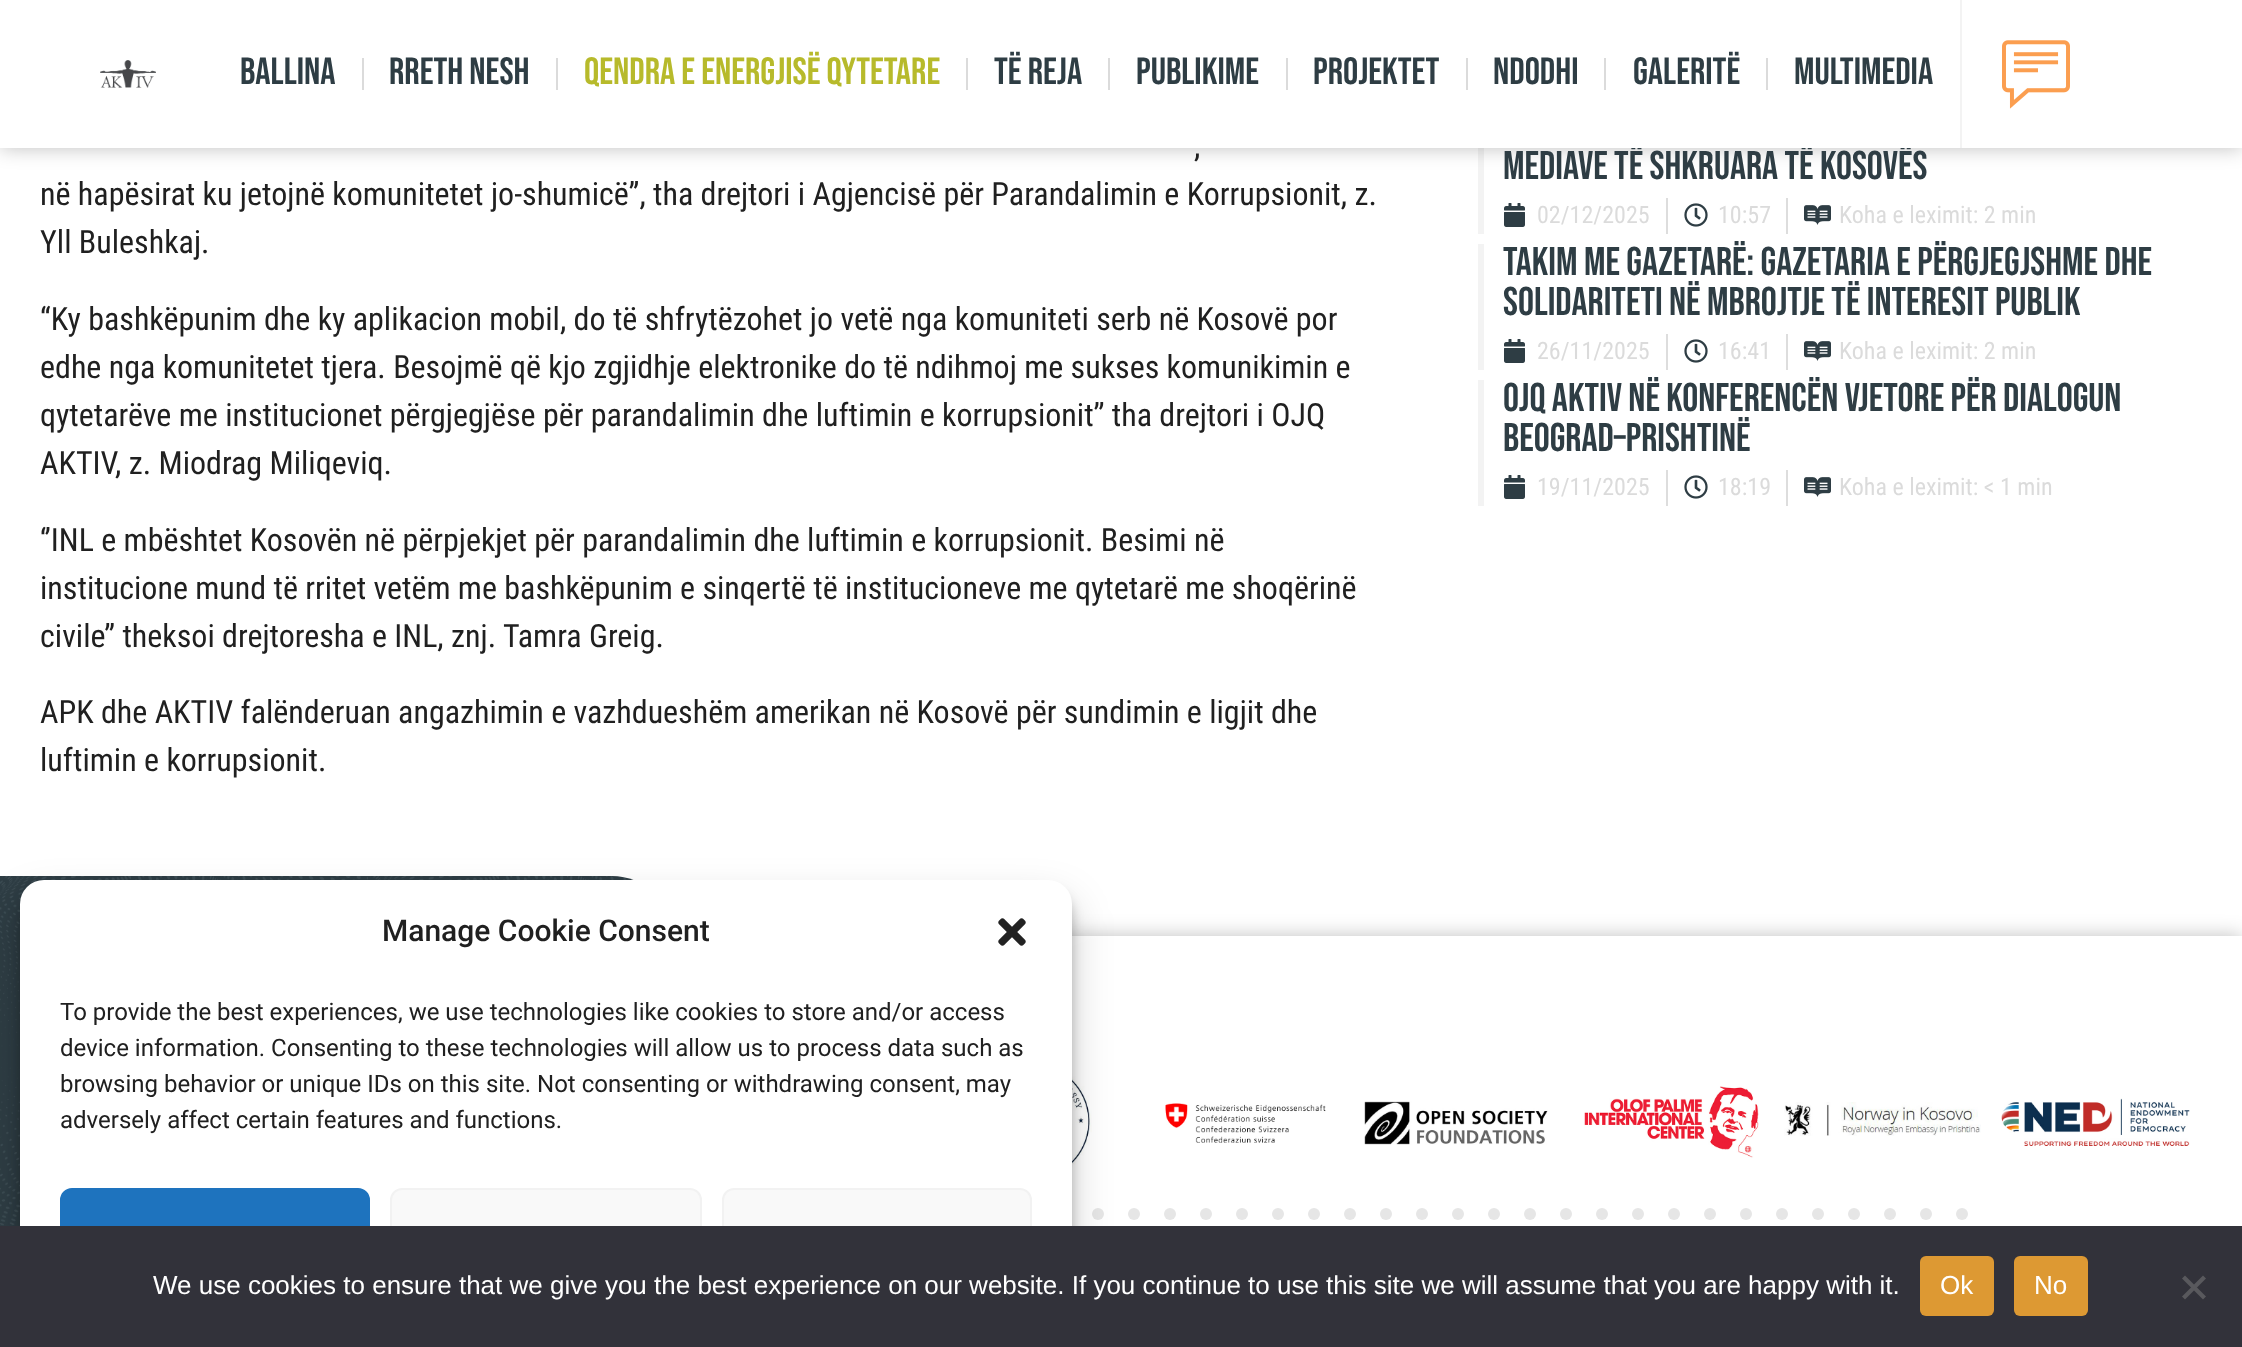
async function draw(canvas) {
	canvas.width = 2242;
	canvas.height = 1347;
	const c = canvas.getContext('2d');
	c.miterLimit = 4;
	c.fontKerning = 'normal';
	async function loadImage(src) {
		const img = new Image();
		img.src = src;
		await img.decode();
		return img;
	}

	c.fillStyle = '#fff';
	c.fillRect(0, 0, 2242, 1347);
	c.fillStyle = '#f3f3f3';
	c.fillRect(1478, 148, 6, 86);
	c.fillStyle = '#00000040';
	c.filter = 'blur(10px)';
	c.beginPath();
	c.rect(0, 0, 2242, 148);
	c.fill();
	c.filter = 'none';
	c.font = '40px Bebas Neue';
	c.fillStyle = '#2e3d44';
	c.fillText('MEDIAVE TË SHKRUARA TË KOSOVËS', 1503, 179);
	c.fillStyle = '#fff';
	c.fillRect(0, 0, 2242, 148);
	c.drawImage(await loadImage('img1.png'), 100, 60, 56, 28);
	c.font = '38px Bebas Neue';
	c.fillStyle = '#2e3d44';
	c.fillText('Ballina', 240, 84);
	c.fillStyle = '#dbdbdb';
	c.fillRect(362, 58, 2, 32);
	c.fillStyle = '#2e3d44';
	c.fillText('Rreth nesh', 389, 84);
	c.fillStyle = '#dbdbdb';
	c.fillRect(556, 58, 2, 32);
	c.fillStyle = '#b7ba2b';
	c.fillText('Qendra e Energjisë Qytetare', 584, 84);
	c.fillStyle = '#dbdbdb';
	c.fillRect(966, 58, 2, 32);
	c.fillStyle = '#2e3d44';
	c.fillText('Të reja', 994, 84);
	c.fillStyle = '#dbdbdb';
	c.fillRect(1108, 58, 2, 32);
	c.fillStyle = '#2e3d44';
	c.fillText('Publikime', 1136, 84);
	c.fillStyle = '#dbdbdb';
	c.fillRect(1286, 58, 2, 32);
	c.fillStyle = '#2e3d44';
	c.fillText('Projektet', 1313, 84);
	c.fillStyle = '#dbdbdb';
	c.fillRect(1466, 58, 2, 32);
	c.fillStyle = '#2e3d44';
	c.fillText('Ndodhi', 1493, 84);
	c.fillStyle = '#dbdbdb';
	c.fillRect(1604, 58, 2, 32);
	c.fillStyle = '#2e3d44';
	c.fillText('Galeritë', 1633, 84);
	c.fillStyle = '#dbdbdb';
	c.fillRect(1766, 58, 2, 32);
	c.fillStyle = '#2e3d44';
	c.fillText('Multimedia', 1794, 84);
	c.fillStyle = '#f3f3f3';
	c.fillRect(1960, 0, 2, 148);
	c.drawImage(await loadImage('img2.png'), 2002, 40, 68, 69);
	c.font = '32px Roboto Condensed';
	c.fillStyle = '#202020';
	for (const [text, x, y] of [
		[',', 1194, 157],
		['në hapësirat ku jetojnë komunitetet jo-shumicë”, tha drejtori i Agjencisë për Parandalimin e Korrupsionit, z.', 40, 205],
		['Yll Buleshkaj.', 40, 253],
		['“Ky bashkëpunim dhe ky aplikacion mobil, do të shfrytëzohet jo vetë nga komuniteti serb në Kosovë por', 40, 330],
		['edhe nga komunitetet tjera. Besojmë që kjo zgjidhje elektronike do të ndihmoj me sukses komunikimin e', 40, 378],
		['qytetarëve me institucionet përgjegjëse për parandalimin dhe luftimin e korrupsionit’’ tha drejtori i OJQ', 40, 426],
		['AKTIV, z. Miodrag Miliqeviq.', 40, 474],
		['‘’INL e mbështet Kosovën në përpjekjet për parandalimin dhe luftimin e korrupsionit. Besimi në', 40, 551],
		['institucione mund të rritet vetëm me bashkëpunim e sinqertë të institucioneve me qytetarë me shoqërinë', 40, 599],
		['civile’’ theksoi drejtoresha e INL, znj. Tamra Greig.', 40, 647],
		['APK dhe AKTIV falënderuan angazhimin e vazhdueshëm amerikan në Kosovë për sundimin e ligjit dhe', 40, 723],
		['luftimin e korrupsionit.', 40, 771],
	]) {
		c.fillText(text, x, y);
	}
	c.drawImage(await loadImage('img3.png'), 1504, 203, 21, 24);
	c.font = '24px Roboto Condensed';
	c.fillStyle = '#dbdbdb';
	c.fillText('02/12/2025', 1537, 223);
	c.fillStyle = '#ddd';
	c.fillRect(1666, 198, 2, 36);
	c.drawImage(await loadImage('img4.png'), 1684, 203, 24, 24);
	c.fillStyle = '#dbdbdb';
	c.fillText('10:57', 1718, 223);
	c.fillStyle = '#ddd';
	c.fillRect(1786, 198, 2, 36);
	c.drawImage(await loadImage('img5.png'), 1804, 205, 27, 20);
	c.fillStyle = '#dbdbdb';
	c.fillText('Koha e leximit: 2 min', 1839, 223);
	c.fillStyle = '#f3f3f3';
	c.fillRect(1478, 244, 6, 126);
	c.font = '40px Bebas Neue';
	c.fillStyle = '#2e3d44';
	c.fillText('TAKIM ME GAZETARË: GAZETARIA E PËRGJEGJSHME DHE', 1503, 275);
	c.fillText('SOLIDARITETI NË MBROJTJE TË INTERESIT PUBLIK', 1503, 315);
	c.drawImage(await loadImage('img3.png'), 1504, 339, 21, 24);
	c.font = '24px Roboto Condensed';
	c.fillStyle = '#dbdbdb';
	c.fillText('26/11/2025', 1537, 359);
	c.fillStyle = '#ddd';
	c.fillRect(1666, 334, 2, 36);
	c.drawImage(await loadImage('img4.png'), 1684, 339, 24, 24);
	c.fillStyle = '#dbdbdb';
	c.fillText('16:41', 1718, 359);
	c.fillStyle = '#ddd';
	c.fillRect(1786, 334, 2, 36);
	c.drawImage(await loadImage('img5.png'), 1804, 341, 27, 20);
	c.fillStyle = '#dbdbdb';
	c.fillText('Koha e leximit: 2 min', 1839, 359);
	c.fillStyle = '#f3f3f3';
	c.fillRect(1478, 380, 6, 126);
	c.font = '40px Bebas Neue';
	c.fillStyle = '#2e3d44';
	c.fillText('OJQ AKTIV NË KONFERENCËN VJETORE PËR DIALOGUN', 1503, 411);
	c.fillText('BEOGRAD–PRISHTINË', 1503, 451);
	c.drawImage(await loadImage('img3.png'), 1504, 475, 21, 24);
	c.font = '24px Roboto Condensed';
	c.fillStyle = '#dbdbdb';
	c.fillText('19/11/2025', 1537, 495);
	c.fillStyle = '#ddd';
	c.fillRect(1666, 470, 2, 36);
	c.drawImage(await loadImage('img4.png'), 1684, 475, 24, 24);
	c.fillStyle = '#dbdbdb';
	c.fillText('18:19', 1718, 495);
	c.fillStyle = '#ddd';
	c.fillRect(1786, 470, 2, 36);
	c.drawImage(await loadImage('img5.png'), 1804, 477, 27, 20);
	c.fillStyle = '#dbdbdb';
	c.fillText('Koha e leximit: < 1 min', 1839, 495);
	c.fillStyle = '#00000040';
	c.filter = 'blur(10px)';
	c.beginPath();
	c.rect(0, 936, 2242, 308);
	c.fill();
	c.filter = 'none';
	c.drawImage(await loadImage('img6.png'), 0, 876, 634, 350);
	c.fillStyle = '#fff';
	c.fillRect(1072, 936, 1170, 290);
	c.drawImage(await loadImage('img7.png'), 1072, 1063, 20, 119);
	c.drawImage(await loadImage('img8.png'), 1165, 1103, 161, 40);
	c.drawImage(await loadImage('img9.png'), 1364, 1101, 184, 44);
	c.drawImage(await loadImage('img10.png'), 1584, 1086, 175, 72);
	c.drawImage(await loadImage('img11.png'), 1784, 1102, 197, 34);
	c.drawImage(await loadImage('img12.png'), 2001, 1098, 189, 48);
	c.fillStyle = '#e6e6e6';
	c.beginPath();
	c.arc(1098, 1214, 6, 0, 2 * Math.PI);
	c.fill();
	c.beginPath();
	c.arc(1134, 1214, 6, 0, 2 * Math.PI);
	c.fill();
	c.beginPath();
	c.arc(1170, 1214, 6, 0, 2 * Math.PI);
	c.fill();
	c.beginPath();
	c.arc(1206, 1214, 6, 0, 2 * Math.PI);
	c.fill();
	c.beginPath();
	c.arc(1242, 1214, 6, 0, 2 * Math.PI);
	c.fill();
	c.beginPath();
	c.arc(1278, 1214, 6, 0, 2 * Math.PI);
	c.fill();
	c.beginPath();
	c.arc(1314, 1214, 6, 0, 2 * Math.PI);
	c.fill();
	c.beginPath();
	c.arc(1350, 1214, 6, 0, 2 * Math.PI);
	c.fill();
	c.beginPath();
	c.arc(1386, 1214, 6, 0, 2 * Math.PI);
	c.fill();
	c.beginPath();
	c.arc(1422, 1214, 6, 0, 2 * Math.PI);
	c.fill();
	c.beginPath();
	c.arc(1458, 1214, 6, 0, 2 * Math.PI);
	c.fill();
	c.beginPath();
	c.arc(1494, 1214, 6, 0, 2 * Math.PI);
	c.fill();
	c.beginPath();
	c.arc(1530, 1214, 6, 0, 2 * Math.PI);
	c.fill();
	c.beginPath();
	c.arc(1566, 1214, 6, 0, 2 * Math.PI);
	c.fill();
	c.beginPath();
	c.arc(1602, 1214, 6, 0, 2 * Math.PI);
	c.fill();
	c.beginPath();
	c.arc(1638, 1214, 6, 0, 2 * Math.PI);
	c.fill();
	c.beginPath();
	c.arc(1674, 1214, 6, 0, 2 * Math.PI);
	c.fill();
	c.beginPath();
	c.arc(1710, 1214, 6, 0, 2 * Math.PI);
	c.fill();
	c.beginPath();
	c.arc(1746, 1214, 6, 0, 2 * Math.PI);
	c.fill();
	c.beginPath();
	c.arc(1782, 1214, 6, 0, 2 * Math.PI);
	c.fill();
	c.beginPath();
	c.arc(1818, 1214, 6, 0, 2 * Math.PI);
	c.fill();
	c.beginPath();
	c.arc(1854, 1214, 6, 0, 2 * Math.PI);
	c.fill();
	c.beginPath();
	c.arc(1890, 1214, 6, 0, 2 * Math.PI);
	c.fill();
	c.beginPath();
	c.arc(1926, 1214, 6, 0, 2 * Math.PI);
	c.fill();
	c.beginPath();
	c.arc(1962, 1214, 6, 0, 2 * Math.PI);
	c.fill();
	c.fillStyle = '#0000003b';
	c.filter = 'blur(6px)';
	c.beginPath();
	c.roundRect(20, 892, 1052, 448, 24);
	c.fill();
	c.filter = 'none';
	c.fillStyle = '#00000030';
	c.filter = 'blur(20px)';
	c.beginPath();
	c.roundRect(20, 900, 1052, 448, 24);
	c.fill();
	c.filter = 'none';
	c.fillStyle = '#fff';
	c.beginPath();
	c.roundRect(20, 880, 1052, 448, 24);
	c.fill();
	c.font = '500 30px Roboto';
	c.fillStyle = '#202020';
	c.fillText('Manage Cookie Consent', 382, 941);
	c.drawImage(await loadImage('img13.png'), 998, 918, 28, 28);
	c.font = '24px Roboto';
	for (const [text, x, y] of [
		['To provide the best experiences, we use technologies like cookies to store and/or access', 60, 1020],
		['device information. Consenting to these technologies will allow us to process data such as', 60, 1056],
		['browsing behavior or unique IDs on this site. Not consenting or withdrawing consent, may', 60, 1092],
		['adversely affect certain features and functions.', 60, 1128],
	]) {
		c.fillText(text, x, y);
	}
	c.fillStyle = '#1e73be';
	c.beginPath();
	c.roundRect(61, 1189, 308, 88, 11);
	c.fill();
	c.strokeStyle = '#1e73be';
	c.lineWidth = 2;
	c.stroke();
	c.fillStyle = '#f9f9f9';
	c.beginPath();
	c.roundRect(391, 1189, 310, 88, 11);
	c.fill();
	c.strokeStyle = '#f2f2f2';
	c.stroke();
	c.beginPath();
	c.roundRect(723, 1189, 308, 88, 11);
	c.fill();
	c.stroke();
	c.fillStyle = '#32323a';
	c.fillRect(0, 1226, 2242, 121);
	c.font = '26px Liberation Sans';
	c.fillStyle = '#fff';
	c.fillText('We use cookies to ensure that we give you the best experience on our website. If you continue to use this site we will assume that you are happy with it.', 153, 1294);
	c.fillStyle = '#d93';
	c.beginPath();
	c.roundRect(1920, 1256, 74, 60, 6);
	c.fill();
	c.fillStyle = '#fff';
	c.fillText('Ok', 1940, 1294);
	c.fillStyle = '#d93';
	c.beginPath();
	c.roundRect(2014, 1256, 74, 60, 6);
	c.fill();
	c.fillStyle = '#fff';
	c.fillText('No', 2034, 1294);
	c.fillStyle = '#59595d';
	c.beginPath();
	c.moveTo(2203, 1275.5);
	c.lineTo(2206, 1278.5);
	c.lineTo(2185, 1299.5);
	c.lineTo(2182, 1296.5);
	c.closePath();
	c.fill();
	c.beginPath();
	c.moveTo(2182, 1278.5);
	c.lineTo(2185, 1275.5);
	c.lineTo(2206, 1296.5);
	c.lineTo(2203, 1299.5);
	c.closePath();
	c.fill();
}

draw(document.querySelector('canvas'));
